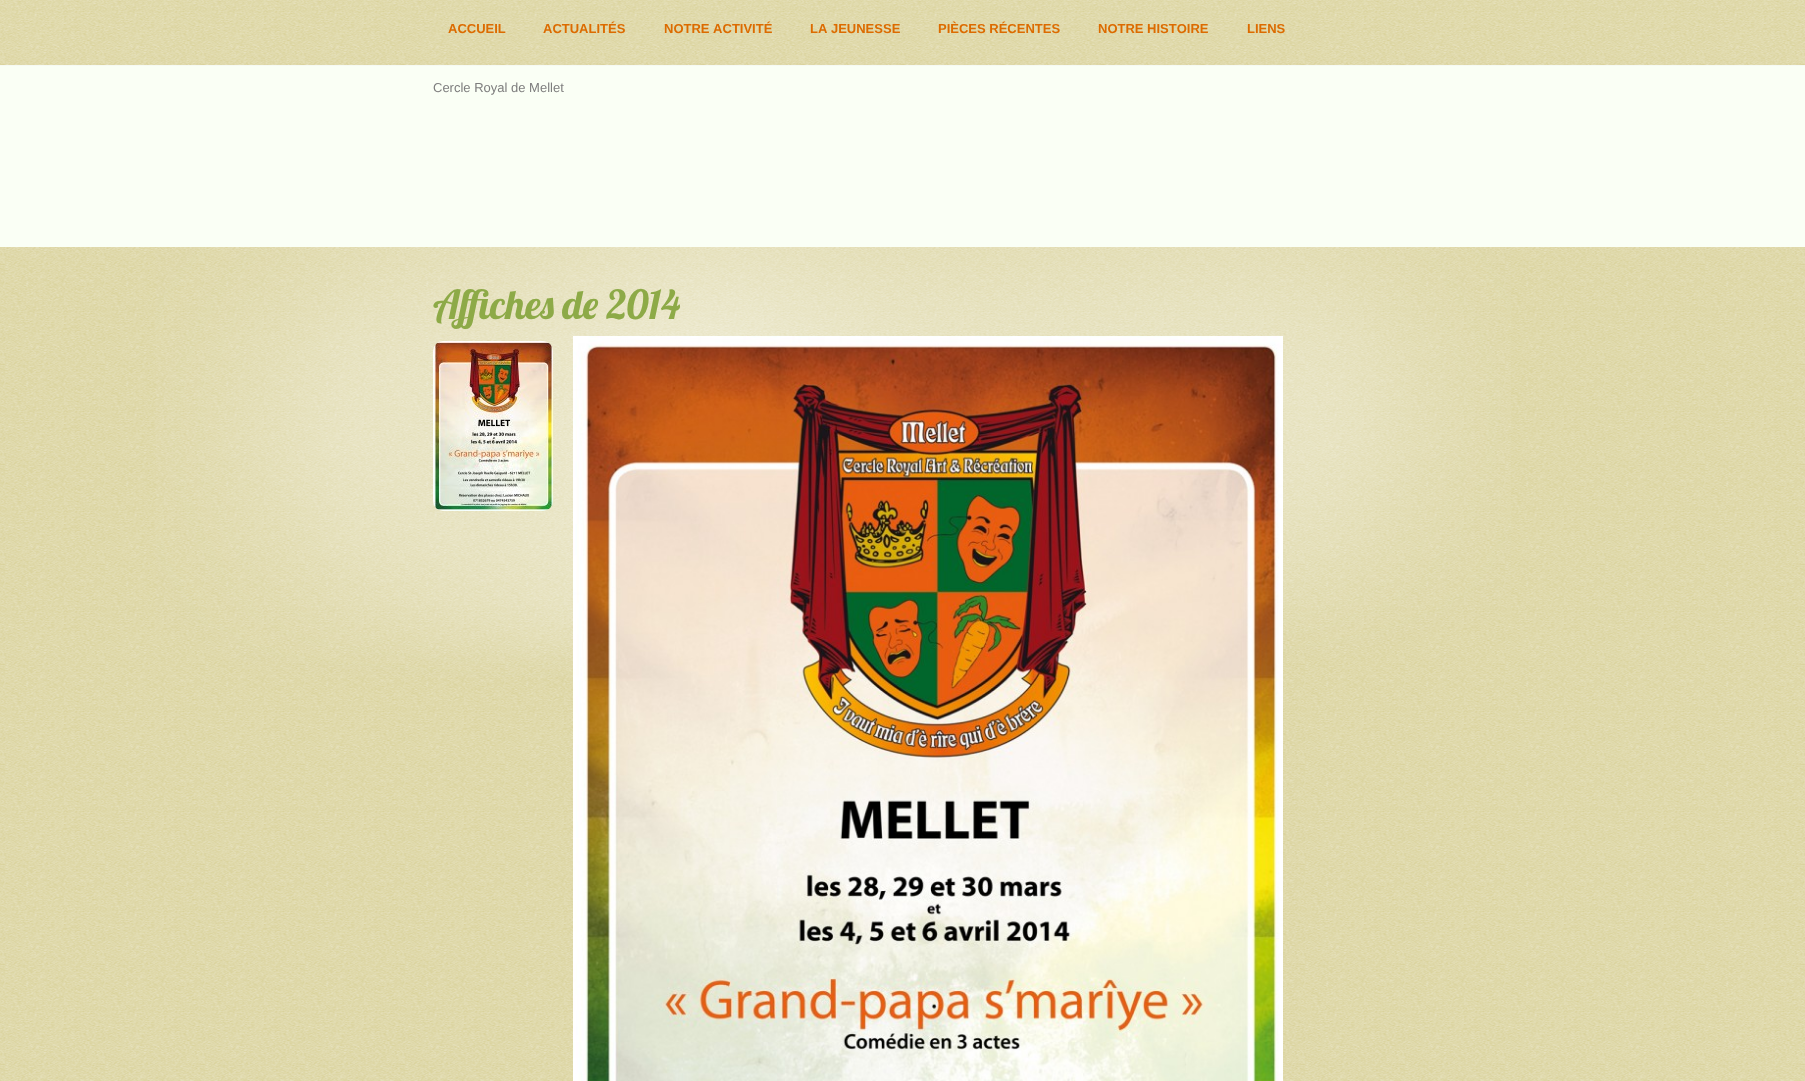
async function draw(canvas) {
	canvas.width = 1805;
	canvas.height = 1081;
	const c = canvas.getContext('2d');
	c.miterLimit = 4;
	c.fontKerning = 'none';
	async function loadImage(src) {
		const img = new Image();
		img.src = src;
		await img.decode();
		return img;
	}

	c.fillStyle = '#fff';
	c.fillRect(0, 0, 1805, 1081);
	c.drawImage(await loadImage('img1.png'), 0, 247, 1805, 834);
	c.fillStyle = '#fafff5';
	c.fillRect(0, 66, 1805, 181);
	c.drawImage(await loadImage('img2.png'), 0, 65, 1805, 1);
	c.drawImage(await loadImage('img3.png'), 0, 0, 1805, 65);
	c.font = 'bold 13px Liberation Sans';
	c.fillStyle = '#dc6b00';
	for (const [text, x, y] of [
		['ACCUEIL', 448, 33],
		['ACTUALITÉS', 543, 33],
		['NOTRE ACTIVITÉ', 664, 33],
		['LA JEUNESSE', 810, 33],
		['PIÈCES RÉCENTES', 938, 33],
		['NOTRE HISTOIRE', 1098, 33],
		['LIENS', 1247, 33],
	]) {
		c.fillText(text, x, y);
	}
	c.font = '13px Liberation Sans';
	c.fillStyle = '#7d7d7d';
	c.fillText('Cercle Royal de Mellet', 433, 92);
	c.drawImage(await loadImage('img4.png'), 156, 247, 1355, 430);
	c.font = '40px Lobster';
	c.fillStyle = '#8daa47';
	c.fillText('Affiches de 2014', 433, 319);
	c.drawImage(await loadImage('img5.png'), 433, 341, 120, 170);
	c.drawImage(await loadImage('img6.png'), 573, 336, 710, 745);
}

draw(document.querySelector('canvas'));
